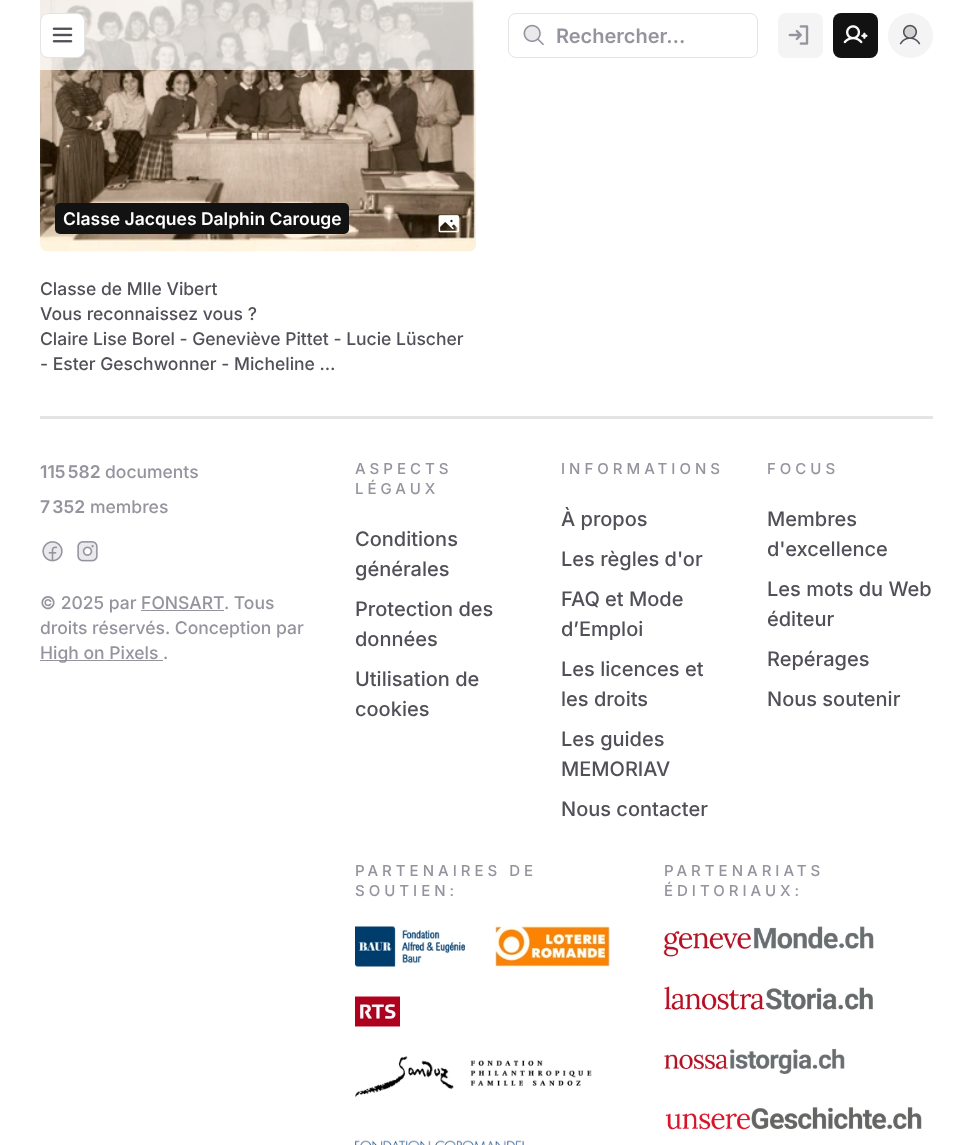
async function draw(canvas) {
	canvas.width = 972;
	canvas.height = 1145;
	const c = canvas.getContext('2d');
	c.miterLimit = 4;
	c.fontKerning = 'normal';
	async function loadImage(src) {
		const img = new Image();
		img.src = src;
		await img.decode();
		return img;
	}

	c.fillStyle = '#fff';
	c.fillRect(0, 0, 972, 1145);
	c.drawImage(await loadImage('img6.png'), 40, 0, 436, 252);
	c.fillStyle = '#ffffffbf';
	c.fillRect(40, 0, 436, 70);
	c.fillStyle = '#fff';
	c.beginPath();
	c.roundRect(40.5, 13.5, 44, 44, 7.5);
	c.fill();
	c.strokeStyle = '#e4e4e7';
	c.stroke();
	c.drawImage(await loadImage('img1.png'), 52, 27, 21, 16);
	c.beginPath();
	c.roundRect(508.5, 13.5, 249, 44, 7.5);
	c.stroke();
	c.drawImage(await loadImage('img2.png'), 523, 24, 21, 22);
	c.font = '600 20px Inter';
	c.fillStyle = '#94949e';
	c.fillText('Rechercher…', 556, 43);
	c.fillStyle = '#f4f4f5';
	c.beginPath();
	c.roundRect(778, 13, 45, 45, 8);
	c.fill();
	c.drawImage(await loadImage('img3.png'), 788, 25, 21, 20);
	c.fillStyle = '#121212';
	c.beginPath();
	c.roundRect(833, 13, 45, 45, 8);
	c.fill();
	c.drawImage(await loadImage('img4.png'), 843, 25, 25, 19);
	c.fillStyle = '#f4f4f5';
	c.beginPath();
	c.arc(910.5, 35.5, 22.5, 0, 2 * Math.PI);
	c.fill();
	c.drawImage(await loadImage('img5.png'), 899, 24, 22, 21);
	c.fillStyle = '#121212';
	c.beginPath();
	c.roundRect(55, 203, 294, 31, 5);
	c.fill();
	c.font = '600 17.5px Inter';
	c.fillStyle = '#fff';
	c.fillText('Classe Jacques Dalphin Carouge', 63, 225);
	c.drawImage(await loadImage('img7.png'), 438, 215, 21, 18);
	c.font = '500 17.5px Inter';
	c.fillStyle = '#505058';
	for (const [text, x, y] of [
		['Classe de Mlle Vibert', 40, 295],
		['Vous reconnaissez vous ?', 40, 320],
		['Claire Lise Borel - Geneviève Pittet - Lucie Lüscher', 40, 345],
		['- Ester Geschwonner - Micheline …', 40, 370],
	]) {
		c.fillText(text, x, y);
	}
	c.fillStyle = '#e4e4e7';
	c.fillRect(40, 416, 893, 3);
	c.font = '600 17.5px Inter';
	c.fillStyle = '#94949e';
	c.fillText('115 582', 40, 478);
	c.font = '500 17.5px Inter';
	c.fillText('documents', 105, 478);
	c.font = '600 17.5px Inter';
	c.fillText('7 352', 40, 513);
	c.font = '500 17.5px Inter';
	c.fillText('membres', 90, 513);
	c.drawImage(await loadImage('img8.png'), 42, 541, 21, 21);
	c.drawImage(await loadImage('img9.png'), 77, 541, 21, 21);
	c.fillText('© 2025 par FONSART', 40, 609);
	c.fillText('. Tous', 224, 609);
	c.fillRect(141, 610, 83, 1);
	c.fillText('droits réservés. Conception par', 40, 634);
	c.fillRect(40, 660, 123, 1);
	c.fillText('High on Pixels .', 40, 659);
	c.letterSpacing = '4px';
	c.font = '500 15px Inter';
	c.fillText('ASPECTS', 355, 474);
	c.fillText('LÉGAUX', 355, 494);
	c.letterSpacing = '0px';
	c.font = '500 20px Inter';
	c.fillStyle = '#505058';
	for (const [text, x, y] of [
		['Conditions', 355, 546],
		['générales', 355, 576],
		['Protection des', 355, 616],
		['données', 355, 646],
		['Utilisation de', 355, 686],
		['cookies', 355, 716],
	]) {
		c.fillText(text, x, y);
	}
	c.letterSpacing = '4px';
	c.font = '500 15px Inter';
	c.fillStyle = '#94949e';
	c.fillText('INFORMATIONS', 561, 474);
	c.letterSpacing = '0px';
	c.font = '500 20px Inter';
	c.fillStyle = '#505058';
	for (const [text, x, y] of [
		['À propos', 561, 526],
		['Les règles d\'or', 561, 566],
		['FAQ et Mode', 561, 606],
		['d’Emploi', 561, 636],
		['Les licences et', 561, 676],
		['les droits', 561, 706],
		['Les guides', 561, 746],
		['MEMORIAV', 561, 776],
		['Nous contacter', 561, 816],
	]) {
		c.fillText(text, x, y);
	}
	c.letterSpacing = '4px';
	c.font = '500 15px Inter';
	c.fillStyle = '#94949e';
	c.fillText('FOCUS', 767, 474);
	c.letterSpacing = '0px';
	c.font = '500 20px Inter';
	c.fillStyle = '#505058';
	for (const [text, x, y] of [
		['Membres', 767, 526],
		['d\'excellence', 767, 556],
		['Les mots du Web', 767, 596],
		['éditeur', 767, 626],
		['Repérages', 767, 666],
		['Nous soutenir', 767, 706],
	]) {
		c.fillText(text, x, y);
	}
	c.letterSpacing = '4px';
	c.font = '500 15px Inter';
	c.fillStyle = '#94949e';
	c.fillText('PARTENAIRES DE', 355, 876);
	c.fillText('SOUTIEN:', 355, 896);
	c.drawImage(await loadImage('img10.png'), 355, 926, 110, 41);
	c.drawImage(await loadImage('img11.png'), 495, 926, 115, 41);
	c.drawImage(await loadImage('img12.png'), 355, 996, 45, 31);
	c.drawImage(await loadImage('img13.png'), 355, 1056, 237, 41);
	c.drawImage(await loadImage('img14.png'), 355, 1140, 169, 5);
	c.fillText('PARTENARIATS', 664, 876);
	c.fillText('ÉDITORIAUX:', 664, 896);
	c.drawImage(await loadImage('img15.png'), 663, 926, 211, 31);
	c.drawImage(await loadImage('img16.png'), 664, 986, 209, 24);
	c.drawImage(await loadImage('img17.png'), 664, 1048, 181, 26);
	c.drawImage(await loadImage('img18.png'), 665, 1107, 257, 23);
}

draw(document.querySelector('canvas'));
